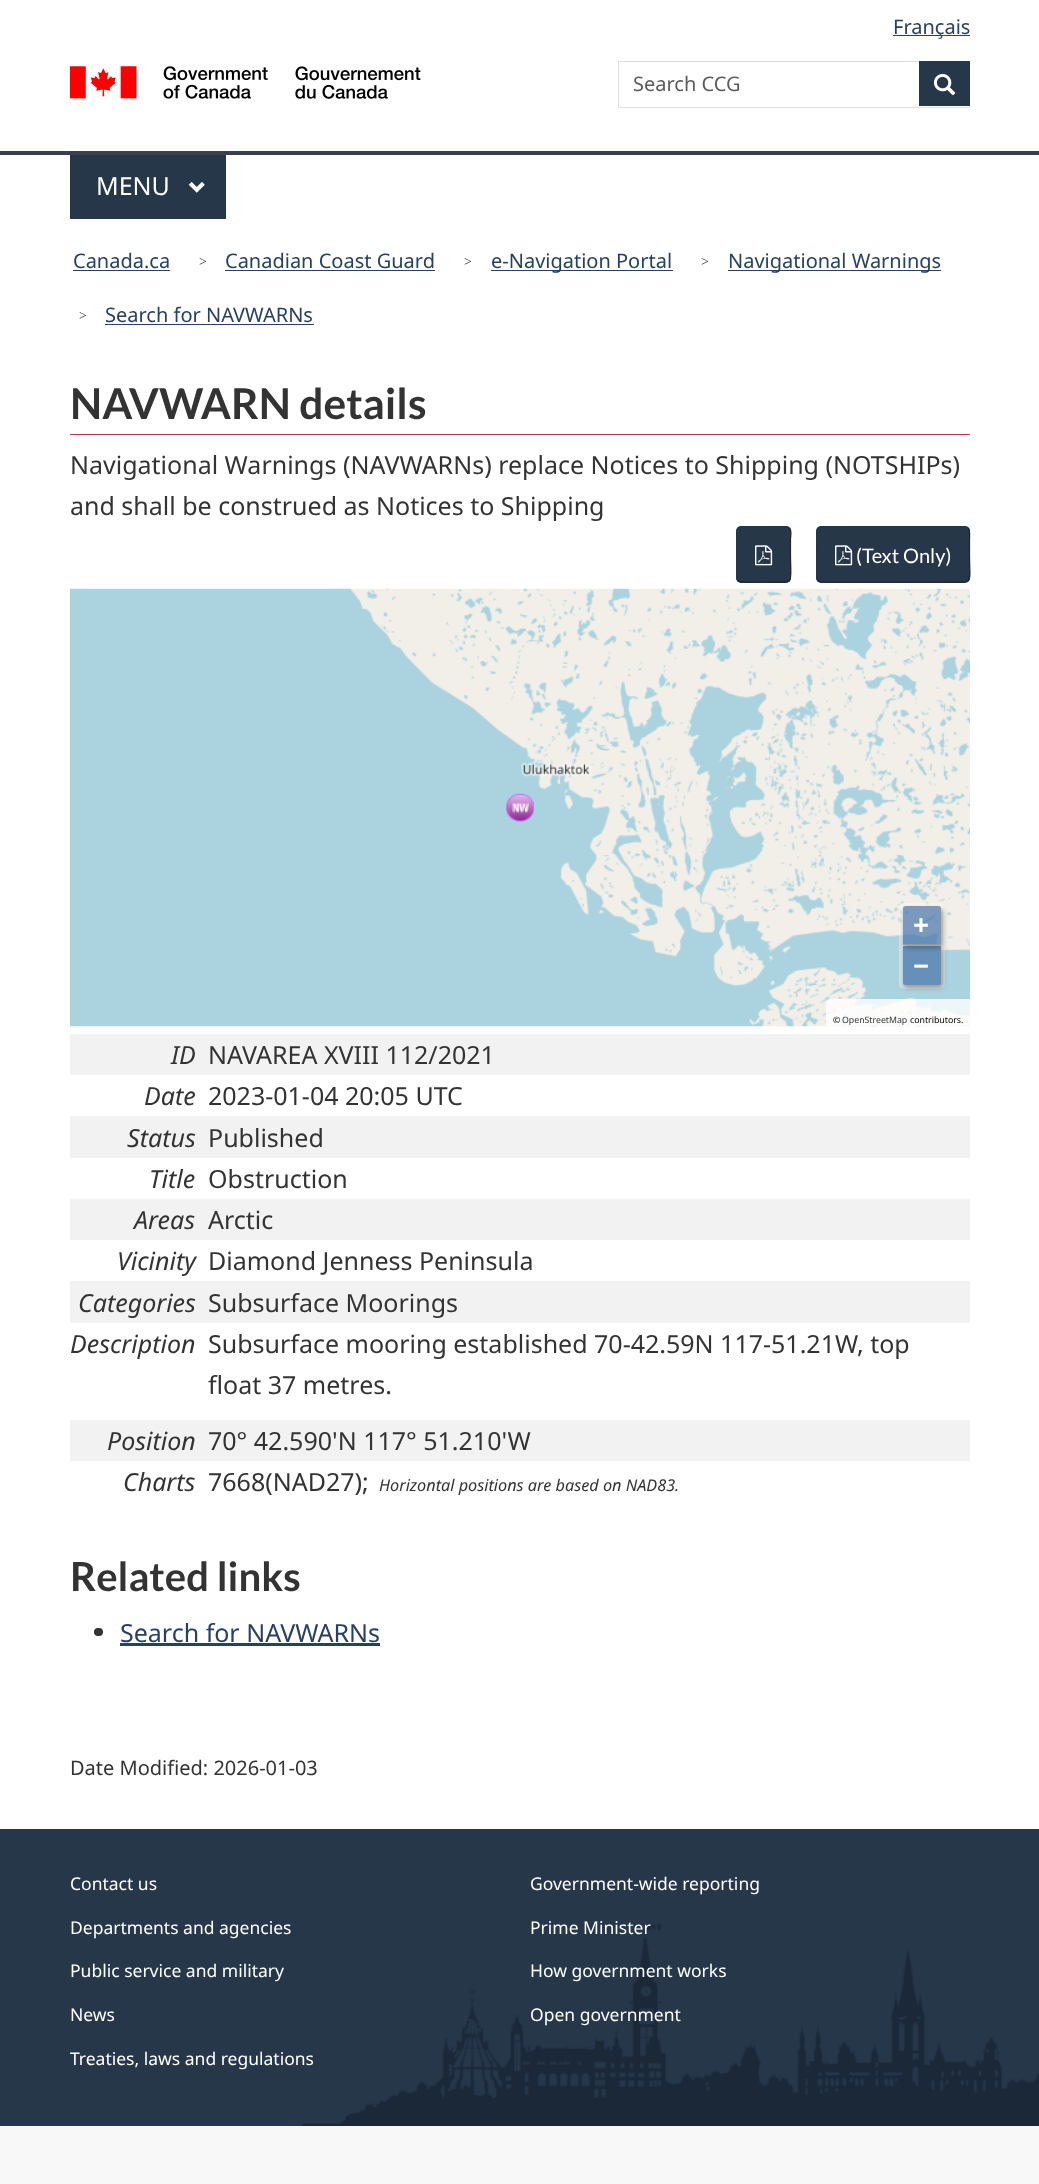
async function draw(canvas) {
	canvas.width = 1039;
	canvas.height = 2184;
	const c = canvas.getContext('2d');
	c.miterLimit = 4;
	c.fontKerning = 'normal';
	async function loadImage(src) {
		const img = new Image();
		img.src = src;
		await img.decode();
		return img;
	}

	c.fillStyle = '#fff';
	c.fillRect(0, 0, 1039, 2184);
	c.fillStyle = '#284162';
	c.fillRect(893, 35, 77, 1);
	c.font = '20px Noto Sans';
	c.fillText('Français', 893, 34);
	c.drawImage(await loadImage('img1.png'), 70, 66, 351, 33);
	c.strokeStyle = '#e0e0e0';
	c.strokeRect(618.5, 61.5, 351, 46);
	c.fillStyle = '#5c5c5c';
	c.fillText('Search CCG', 633, 91);
	c.fillStyle = '#26374a';
	c.fillRect(919, 61, 51, 45);
	c.drawImage(await loadImage('img2.png'), 933, 73, 23, 23);
	c.fillStyle = '#38414d';
	c.fillRect(0, 151, 1039, 4);
	c.fillStyle = '#26374a';
	c.fillRect(70, 155, 156, 64);
	c.font = '25px Noto Sans';
	c.fillStyle = '#fff';
	c.fillText('MENU', 96, 195);
	c.drawImage(await loadImage('img3.png'), 188, 181, 17, 12);
	c.font = '20px Noto Sans';
	c.fillStyle = '#284162';
	c.fillText('Canada.ca', 73, 268);
	c.fillRect(73, 270, 97, 1);
	c.font = '14px Liberation Serif';
	c.fillStyle = '#333';
	c.fillText('>', 199, 266);
	c.font = '20px Noto Sans';
	c.fillStyle = '#284162';
	c.fillText('Canadian Coast Guard', 225, 268);
	c.fillRect(225, 270, 210, 1);
	c.font = '14px Liberation Serif';
	c.fillStyle = '#333';
	c.fillText('>', 464, 266);
	c.fillStyle = '#284162';
	c.fillRect(491, 270, 182, 1);
	c.font = '20px Noto Sans';
	c.fillText('e-Navigation Portal', 491, 268);
	c.font = '14px Liberation Serif';
	c.fillStyle = '#333';
	c.fillText('>', 701, 266);
	c.fillStyle = '#284162';
	c.fillRect(728, 270, 213, 1);
	c.font = '20px Noto Sans';
	c.fillText('Navigational Warnings', 728, 268);
	c.font = '14px Liberation Serif';
	c.fillStyle = '#333';
	c.fillText('>', 79, 320);
	c.font = '20px Noto Sans';
	c.fillStyle = '#284162';
	c.fillText('Search for NAVWARNs', 105, 322);
	c.fillRect(105, 324, 209, 1);
	c.fillStyle = '#af3c43';
	c.fillRect(70, 434, 900, 1);
	c.font = 'bold 42.5px Lato';
	c.fillStyle = '#333';
	c.fillText('NAVWARN details', 70, 419);
	c.font = '25px Noto Sans';
	c.fillText('Navigational Warnings (NAVWARNs) replace Notices to Shipping (NOTSHIPs)', 70, 474);
	c.fillText('and shall be construed as Notices to Shipping', 70, 515);
	c.fillStyle = '#26374a';
	c.beginPath();
	c.roundRect(736, 526, 55, 57, 5);
	c.fill();
	c.beginPath();
	c.moveTo(789.5, 528);
	c.bezierCurveTo(792, 530.5, 790.5, 537, 790.5, 539);
	c.lineTo(790.5, 554.5);
	c.bezierCurveTo(790.5, 587.5, 796.5, 582, 764, 582);
	c.lineTo(749, 582);
	c.bezierCurveTo(746.5, 582, 740.5, 583, 738, 580.5);
	c.strokeStyle = '#192531';
	c.lineWidth = 1.2;
	c.stroke();
	c.beginPath();
	c.moveTo(738, 580.5);
	c.bezierCurveTo(735.5, 578, 737, 572, 737, 570);
	c.lineTo(737, 554.5);
	c.bezierCurveTo(737, 521.5, 731, 527, 764, 527);
	c.lineTo(779, 527);
	c.bezierCurveTo(781, 527, 787, 525.5, 789.5, 528);
	c.strokeStyle = '#26374a';
	c.stroke();
	c.drawImage(await loadImage('img4.png'), 755, 545, 18, 21);
	c.beginPath();
	c.roundRect(816, 526, 154, 57, 5);
	c.fill();
	c.beginPath();
	c.moveTo(968, 528);
	c.bezierCurveTo(970.5, 530.5, 969.5, 537, 969.5, 539);
	c.lineTo(969.5, 554.5);
	c.bezierCurveTo(969.5, 587.5, 975.5, 582, 941, 582);
	c.lineTo(821, 582);
	c.lineTo(818, 580.5);
	c.strokeStyle = '#192531';
	c.stroke();
	c.beginPath();
	c.moveTo(818, 580.5);
	c.bezierCurveTo(815.5, 578, 817, 572, 817, 570);
	c.lineTo(817, 554.5);
	c.bezierCurveTo(817, 521, 811, 527, 845, 527);
	c.lineTo(965, 527);
	c.lineTo(968, 528);
	c.strokeStyle = '#26374a';
	c.stroke();
	c.drawImage(await loadImage('img4.png'), 835, 545, 18, 21);
	c.font = '20px Lato';
	c.fillStyle = '#fff';
	c.fillText('(Text Only)', 856, 563);
	c.drawImage(await loadImage('img5.png'), 70, 588, 900, 439);
	c.fillStyle = '#ffffff66';
	c.beginPath();
	c.roundRect(899, 903, 46, 86, 5);
	c.fill();
	c.save();
	c.beginPath();
	c.moveTo(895, 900);
	c.lineTo(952, 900);
	c.lineTo(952, 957);
	c.lineTo(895, 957);
	c.closePath();
	c.moveTo(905.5, 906);
	c.lineTo(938.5, 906);
	c.bezierCurveTo(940, 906, 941, 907, 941, 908.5);
	c.lineTo(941, 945);
	c.lineTo(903, 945);
	c.lineTo(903, 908.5);
	c.bezierCurveTo(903, 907, 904, 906, 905.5, 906);
	c.closePath();
	c.clip('evenodd');
	c.fillStyle = '#999';
	c.filter = 'blur(2.5px)';
	c.beginPath();
	c.roundRect(904, 909, 39, 39, 2.5);
	c.fill();
	c.filter = 'none';
	c.restore();
	c.fillStyle = '#003c8880';
	c.beginPath();
	c.roundRect(903, 906, 38, 39, [2.5, 2.5, 0, 0]);
	c.fill();
	c.fillStyle = '#999';
	c.fillRect(903, 944, 38, 1);
	c.font = 'bold 28px Noto Sans';
	c.fillStyle = '#fff';
	c.fillText('+', 913, 935);
	c.save();
	c.beginPath();
	c.moveTo(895, 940);
	c.lineTo(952, 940);
	c.lineTo(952, 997);
	c.lineTo(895, 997);
	c.closePath();
	c.moveTo(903, 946);
	c.lineTo(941, 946);
	c.lineTo(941, 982.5);
	c.bezierCurveTo(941, 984, 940, 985, 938.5, 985);
	c.lineTo(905.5, 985);
	c.bezierCurveTo(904, 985, 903, 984, 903, 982.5);
	c.closePath();
	c.clip('evenodd');
	c.fillStyle = '#999';
	c.filter = 'blur(2.5px)';
	c.beginPath();
	c.roundRect(904, 949, 39, 39, 2.5);
	c.fill();
	c.filter = 'none';
	c.restore();
	c.fillStyle = '#003c8880';
	c.beginPath();
	c.roundRect(903, 946, 38, 39, [0, 0, 2.5, 2.5]);
	c.fill();
	c.fillStyle = '#fff';
	c.fillText('−', 913, 976);
	c.fillStyle = '#ffffffcc';
	c.beginPath();
	c.roundRect(826, 999, 144, 27, [5, 0, 0, 0]);
	c.fill();
	c.font = '8.75px Noto Sans';
	c.fillStyle = '#000';
	c.fillText('©', 833, 1023);
	c.fillStyle = '#333';
	c.fillText('OpenStreetMap', 842, 1023);
	c.fillStyle = '#000';
	c.fillText('contributors.', 910, 1023);
	c.fillStyle = '#f2f2f2';
	c.fillRect(70, 1034, 900, 41);
	c.font = 'italic 25px Noto Sans';
	c.fillStyle = '#333';
	c.fillText('ID', 171, 1064);
	c.font = '25px Noto Sans';
	c.fillText('NAVAREA XVIII 112/2021', 208, 1064);
	c.font = 'italic 25px Noto Sans';
	c.fillText('Date', 144, 1105);
	c.font = '25px Noto Sans';
	c.fillText('2023-01-04 20:05 UTC', 208, 1105);
	c.fillStyle = '#f2f2f2';
	c.fillRect(70, 1116, 900, 42);
	c.font = 'italic 25px Noto Sans';
	c.fillStyle = '#333';
	c.fillText('Status', 127, 1147);
	c.font = '25px Noto Sans';
	c.fillText('Published', 208, 1147);
	c.font = 'italic 25px Noto Sans';
	c.fillText('Title', 149, 1188);
	c.font = '25px Noto Sans';
	c.fillText('Obstruction', 208, 1188);
	c.fillStyle = '#f2f2f2';
	c.fillRect(70, 1199, 900, 41);
	c.font = 'italic 25px Noto Sans';
	c.fillStyle = '#333';
	c.fillText('Areas', 134, 1229);
	c.font = '25px Noto Sans';
	c.fillText('Arctic', 208, 1229);
	c.font = 'italic 25px Noto Sans';
	c.fillText('Vicinity', 117, 1270);
	c.font = '25px Noto Sans';
	c.fillText('Diamond Jenness Peninsula', 208, 1270);
	c.fillStyle = '#f2f2f2';
	c.fillRect(70, 1281, 900, 42);
	c.font = 'italic 25px Noto Sans';
	c.fillStyle = '#333';
	c.fillText('Categories', 78, 1312);
	c.font = '25px Noto Sans';
	c.fillText('Subsurface Moorings', 208, 1312);
	c.font = 'italic 25px Noto Sans';
	c.fillText('Description', 70, 1353);
	c.font = '25px Noto Sans';
	c.fillText('Subsurface mooring established 70-42.59N 117-51.21W, top', 208, 1353);
	c.fillText('float 37 metres.', 208, 1394);
	c.fillStyle = '#f2f2f2';
	c.fillRect(70, 1420, 900, 41);
	c.font = 'italic 25px Noto Sans';
	c.fillStyle = '#333';
	c.fillText('Position', 107, 1450);
	c.font = '25px Noto Sans';
	c.fillText('70° 42.590\'N 117° 51.210\'W', 208, 1450);
	c.font = 'italic 25px Noto Sans';
	c.fillText('Charts', 123, 1491);
	c.font = '25px Noto Sans';
	c.fillText('7668(NAD27);', 208, 1491);
	c.font = 'italic 16.25px Noto Sans';
	c.fillText('Horizontal positions are based on NAD83.', 379, 1491);
	c.font = 'bold 40px Lato';
	c.fillText('Related links', 70, 1591);
	c.beginPath();
	c.roundRect(94, 1628, 9, 8, 4);
	c.fill();
	c.font = '25px Noto Sans';
	c.fillStyle = '#284162';
	c.fillText('Search for NAVWARNs', 120, 1642);
	c.fillRect(120, 1643, 260, 3);
	c.font = '20px Noto Sans';
	c.fillStyle = '#333';
	c.fillText('Date Modified: 2026-01-03', 70, 1775);
	c.fillStyle = '#26374a';
	c.fillRect(0, 1829, 1039, 297);
	c.drawImage(await loadImage('img6.png'), 302, 1923, 737, 203);
	c.font = '17.5px Noto Sans';
	c.fillStyle = '#fff';
	for (const [text, x, y] of [
		['Contact us', 70, 1890],
		['Government-wide reporting', 530, 1890],
		['Departments and agencies', 70, 1934],
		['Prime Minister', 530, 1934],
		['Public service and military', 70, 1977],
		['How government works', 530, 1977],
		['News', 70, 2021],
		['Open government', 530, 2021],
		['Treaties, laws and regulations', 70, 2065],
	]) {
		c.fillText(text, x, y);
	}
	c.fillStyle = '#f8f8f8';
	c.fillRect(0, 2126, 1039, 58);
}

draw(document.querySelector('canvas'));
